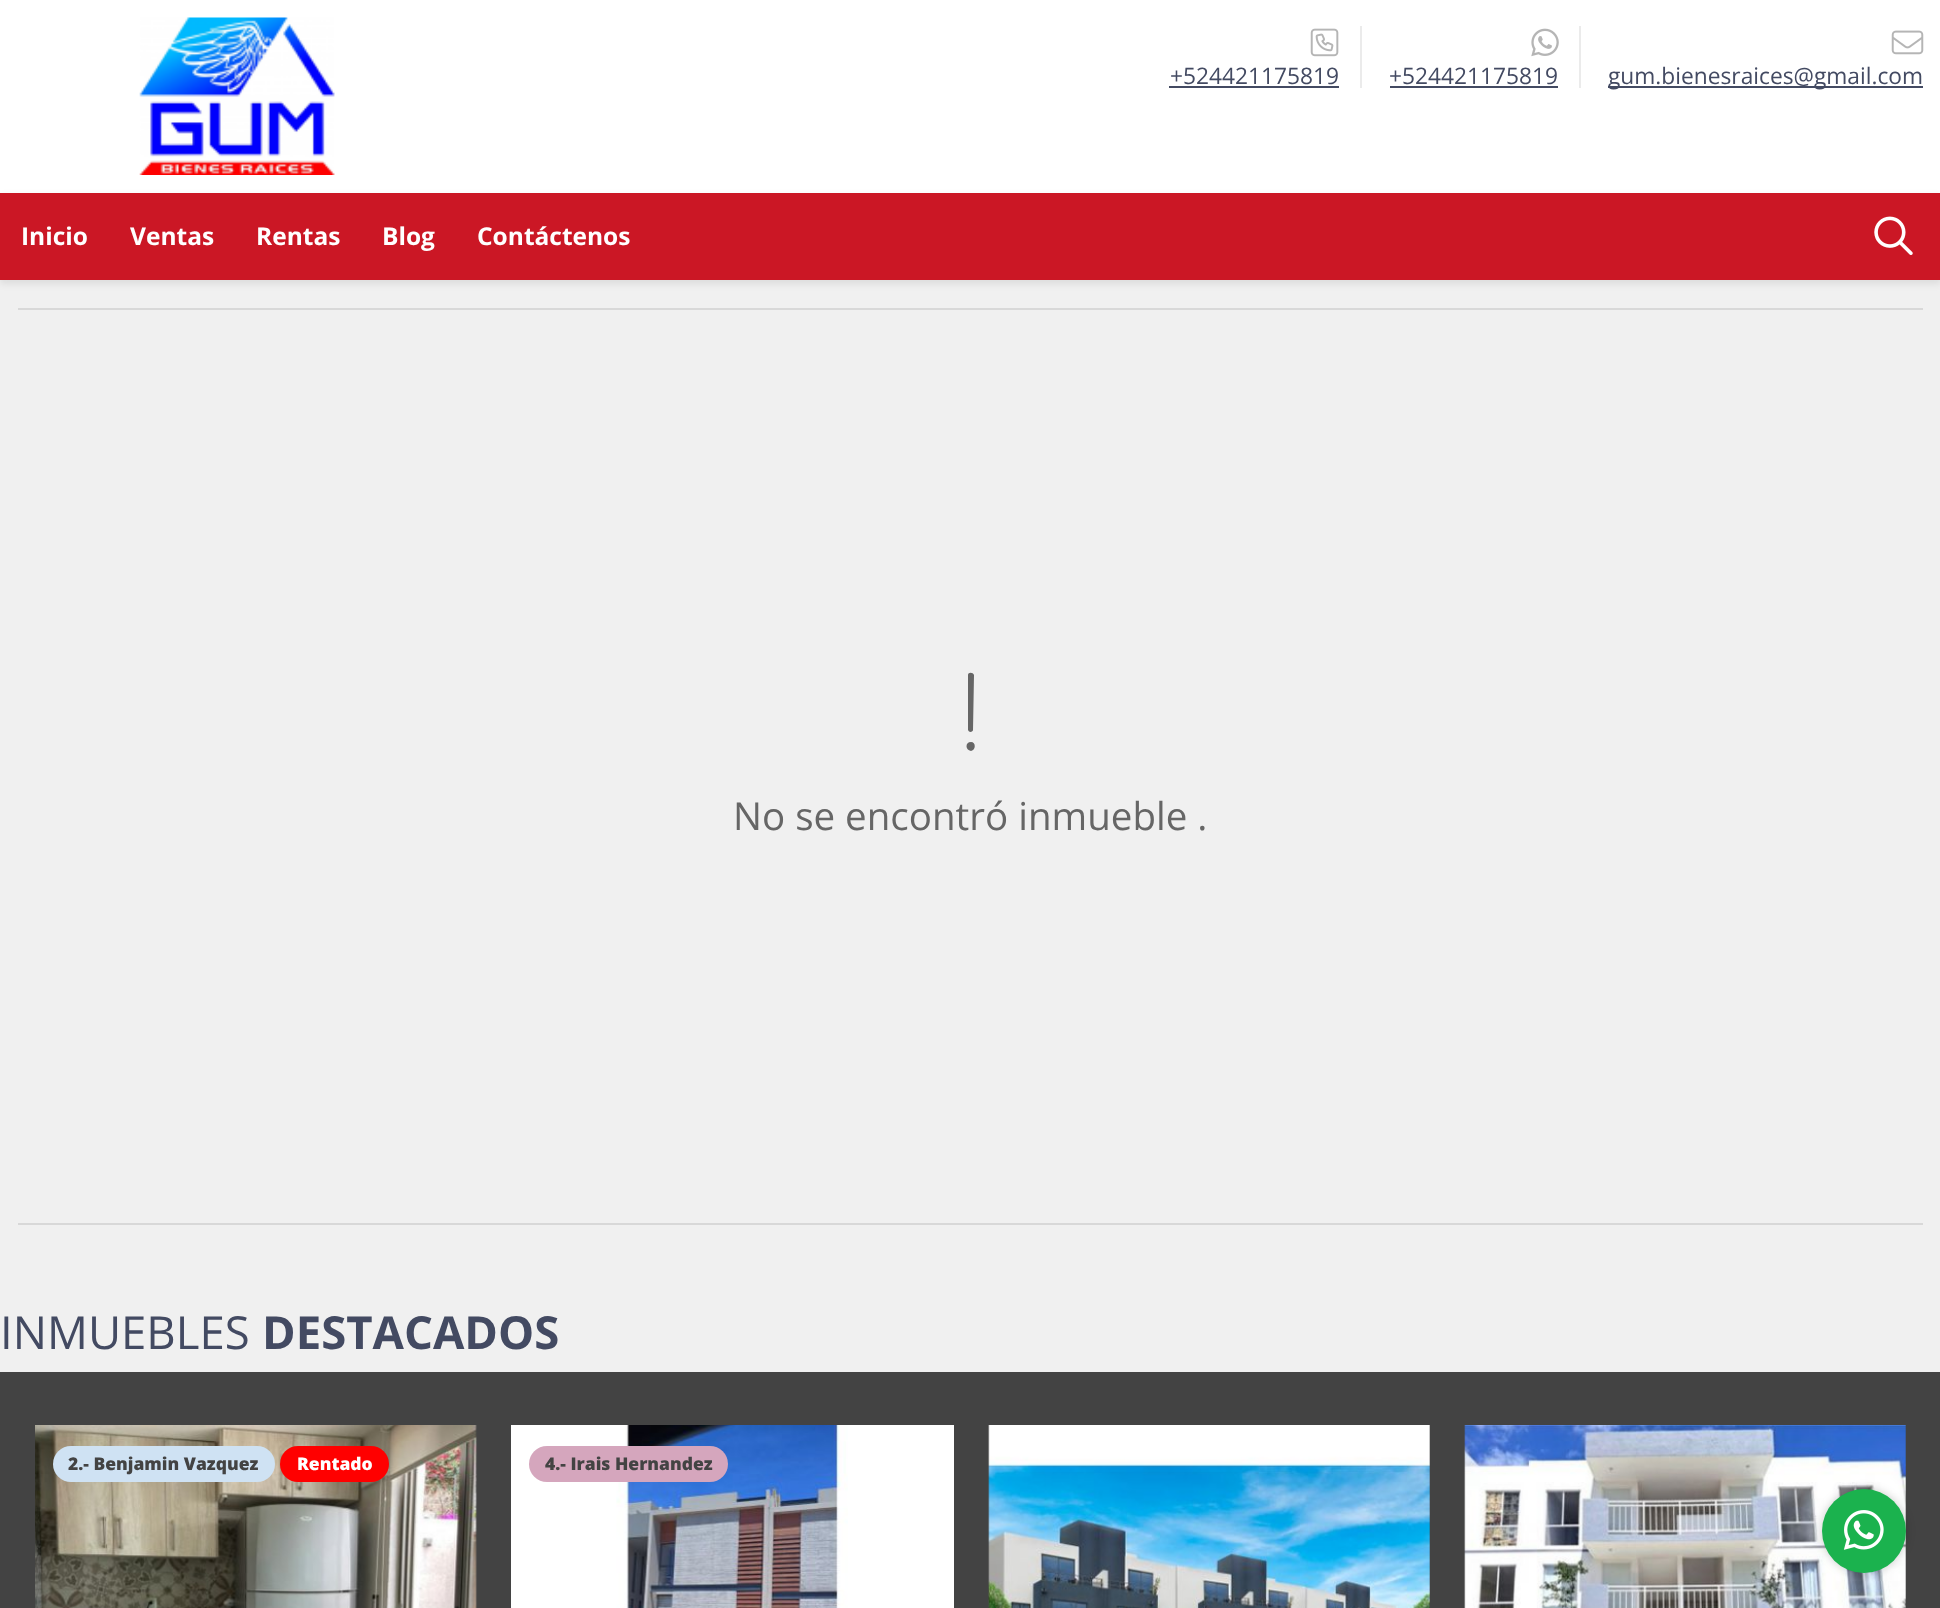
async function draw(canvas) {
	canvas.width = 1940;
	canvas.height = 1608;
	const c = canvas.getContext('2d');
	c.miterLimit = 4;
	c.fontKerning = 'normal';
	async function loadImage(src) {
		const img = new Image();
		img.src = src;
		await img.decode();
		return img;
	}

	c.fillStyle = '#f0f0f0';
	c.fillRect(0, 0, 1940, 1608);
	c.fillStyle = '#fff';
	c.fillRect(0, 0, 1940, 193);
	c.drawImage(await loadImage('img1.png'), 139, 17, 196, 158);
	c.fillStyle = '#ebebeb';
	c.fillRect(1360, 26, 2, 62);
	c.drawImage(await loadImage('img2.png'), 1310, 28, 29, 29);
	c.font = '22.75px Open Sans';
	c.fillStyle = '#434a62';
	c.fillText('+524421175819', 1170, 84);
	c.fillRect(1169, 86, 170, 2);
	c.fillStyle = '#ebebeb';
	c.fillRect(1579, 26, 2, 62);
	c.drawImage(await loadImage('img3.png'), 1531, 28, 28, 29);
	c.fillStyle = '#434a62';
	c.fillText('+524421175819', 1389, 84);
	c.fillRect(1390, 86, 168, 2);
	c.drawImage(await loadImage('img4.png'), 1891, 30, 33, 25);
	c.fillRect(1608, 86, 315, 2);
	c.fillText('gum.bienesraices@gmail.com', 1608, 84);
	c.fillStyle = '#00000014';
	c.filter = 'blur(3.5px)';
	c.beginPath();
	c.rect(0, 196, 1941, 88);
	c.fill();
	c.filter = 'none';
	c.fillStyle = '#cb1725';
	c.fillRect(0, 193, 1940, 87);
	c.font = 'bold 24.5px Open Sans';
	c.fillStyle = '#fff';
	for (const [text, x, y] of [
		['Inicio', 21, 245],
		['Ventas', 130, 245],
		['Rentas', 256, 245],
		['Blog', 382, 245],
		['Contáctenos', 477, 245],
	]) {
		c.fillText(text, x, y);
	}
	c.drawImage(await loadImage('img5.png'), 1874, 216, 39, 39);
	c.fillStyle = '#d8d8d8';
	c.fillRect(18, 308, 1905, 2);
	c.fillStyle = '#666';
	c.beginPath();
	c.moveTo(974, 675);
	c.bezierCurveTo(973, 672, 968, 672, 968, 675);
	c.lineTo(968, 730);
	c.bezierCurveTo(969, 733, 973, 732, 973, 730);
	c.closePath();
	c.moveTo(971, 751);
	c.bezierCurveTo(976, 750, 976, 742, 971, 742);
	c.bezierCurveTo(965, 742, 965, 750, 971, 751);
	c.closePath();
	c.fill();
	c.font = '38.5px Open Sans';
	c.fillText('No se encontró inmueble .', 733, 830);
	c.fillStyle = '#d8d8d8';
	c.fillRect(18, 1223, 1905, 2);
	c.font = '45.5px Open Sans';
	c.fillStyle = '#434a62';
	c.fillText('INMUEBLES', 0, 1349);
	c.font = 'bold 45.5px Open Sans';
	c.fillText('DESTACADOS', 262, 1349);
	c.fillStyle = '#434343';
	c.fillRect(0, 1372, 1940, 236);
	c.drawImage(await loadImage('img6.png'), 35, 1425, 442, 183);
	c.fillStyle = '#cfe2f3';
	c.beginPath();
	c.roundRect(53, 1446, 222, 36, 18);
	c.fill();
	c.font = '800 17.5px Open Sans';
	c.fillStyle = '#434343';
	c.fillText('2.- Benjamin Vazquez', 68, 1470);
	c.fillStyle = '#f00';
	c.beginPath();
	c.roundRect(280, 1446, 109, 36, 18);
	c.fill();
	c.fillStyle = '#fff';
	c.fillText('Rentado', 297, 1470);
	c.fillRect(511, 1425, 443, 183);
	c.drawImage(await loadImage('img7.png'), 616, 1425, 232, 183);
	c.fillStyle = '#d5a6bd';
	c.beginPath();
	c.roundRect(529, 1446, 199, 36, 18);
	c.fill();
	c.fillStyle = '#434343';
	c.fillText('4.- Irais Hernandez', 545, 1470);
	c.drawImage(await loadImage('img8.png'), 988, 1425, 442, 183);
	c.drawImage(await loadImage('img9.png'), 1464, 1425, 442, 183);
	c.fillStyle = '#00000033';
	c.filter = 'blur(5px)';
	c.beginPath();
	c.roundRect(1822, 1489, 84, 84, 42);
	c.fill();
	c.filter = 'none';
	c.fillStyle = '#1bb24e';
	c.beginPath();
	c.arc(1864, 1531, 42, 0, 2 * Math.PI);
	c.fill();
	c.drawImage(await loadImage('img10.png'), 1843, 1510, 41, 40);
}

draw(document.querySelector('canvas'));
